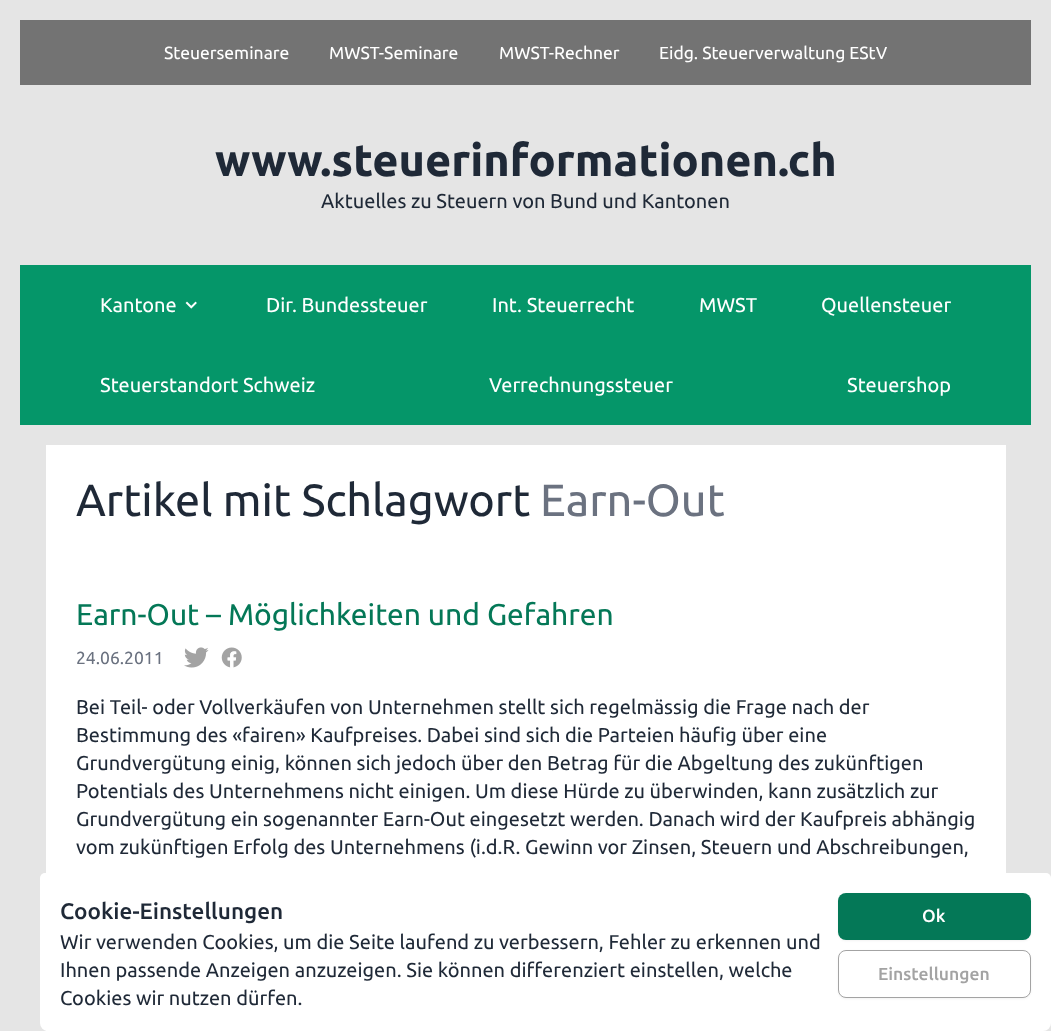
async function draw(canvas) {
	canvas.width = 1051;
	canvas.height = 1031;
	const c = canvas.getContext('2d');
	c.miterLimit = 4;
	c.fontKerning = 'normal';
	async function loadImage(src) {
		const img = new Image();
		img.src = src;
		await img.decode();
		return img;
	}

	c.fillStyle = '#e5e5e5';
	c.fillRect(0, 0, 1051, 1031);
	c.fillStyle = '#737373';
	c.fillRect(20, 20, 1011, 65);
	c.font = '17.5px Ubuntu';
	c.fillStyle = '#fff';
	for (const [text, x, y] of [
		['Steuerseminare', 164, 59],
		['MWST-Seminare', 329, 59],
		['MWST-Rechner', 499, 59],
		['Eidg. Steuerverwaltung EStV', 659, 59],
	]) {
		c.fillText(text, x, y);
	}
	c.font = 'bold 45px Ubuntu';
	c.fillStyle = '#1f2937';
	c.fillText('www.steuerinformationen.ch', 215, 176);
	c.font = '20px Ubuntu';
	c.fillText('Aktuelles zu Steuern von Bund und Kantonen', 321, 208);
	c.fillStyle = '#059669';
	c.fillRect(20, 265, 1011, 160);
	c.fillStyle = '#fff';
	c.fillText('Kantone', 100, 312);
	c.drawImage(await loadImage('img1.png'), 185, 301, 12, 8);
	for (const [text, x, y] of [
		['Dir. Bundessteuer', 266, 312],
		['Int. Steuerrecht', 492, 312],
		['MWST', 699, 312],
		['Quellensteuer', 821, 312],
		['Steuerstandort Schweiz', 100, 392],
		['Verrechnungssteuer', 489, 392],
		['Steuershop', 847, 392],
	]) {
		c.fillText(text, x, y);
	}
	c.fillRect(46, 445, 960, 586);
	c.font = '45px Ubuntu';
	c.fillStyle = '#1f2937';
	c.fillText('Artikel mit Schlagwort', 76, 516);
	c.fillStyle = '#6b7280';
	c.fillText('Earn-Out', 540, 516);
	c.font = '30px Ubuntu';
	c.fillStyle = '#047857';
	c.fillText('Earn-Out – Möglichkeiten und Gefahren', 76, 625);
	c.font = '17.5px Ubuntu';
	c.fillStyle = '#6b7280';
	c.fillText('24.06.2011', 76, 664);
	c.drawImage(await loadImage('img2.png'), 184, 647, 25, 21);
	c.drawImage(await loadImage('img3.png'), 221, 647, 21, 21);
	c.font = '20px Ubuntu';
	c.fillStyle = '#1f2937';
	for (const [text, x, y] of [
		['Bei Teil- oder Vollverkäufen von Unternehmen stellt sich regelmässig die Frage nach der', 76, 714],
		['Bestimmung des «fairen» Kaufpreises. Dabei sind sich die Parteien häufig über eine', 76, 742],
		['Grundvergütung einig, können sich jedoch über den Betrag für die Abgeltung des zukünftigen', 76, 770],
		['Potentials des Unternehmens nicht einigen. Um diese Hürde zu überwinden, kann zusätzlich zur', 76, 798],
		['Grundvergütung ein sogenannter Earn-Out eingesetzt werden. Danach wird der Kaufpreis abhängig', 76, 826],
		['vom zukünftigen Erfolg des Unternehmens (i.d.R. Gewinn vor Zinsen, Steuern und Abschreibungen,', 76, 854],
	]) {
		c.fillText(text, x, y);
	}
	c.fillStyle = '#fff';
	c.beginPath();
	c.roundRect(40, 873, 1011, 158, [5, 5, 8, 8]);
	c.fill();
	c.font = '500 22.5px Ubuntu';
	c.fillStyle = '#1f2937';
	c.fillText('Cookie-Einstellungen', 60, 919);
	c.font = '20px Ubuntu';
	for (const [text, x, y] of [
		['Wir verwenden Cookies, um die Seite laufend zu verbessern, Fehler zu erkennen und', 60, 949],
		['Ihnen passende Anzeigen anzuzeigen. Sie können differenziert einstellen, welche', 60, 977],
		['Cookies wir nutzen dürfen.', 60, 1005],
	]) {
		c.fillText(text, x, y);
	}
	c.fillStyle = '#0000000d';
	c.filter = 'blur(1px)';
	c.beginPath();
	c.roundRect(838, 894, 193, 47, 8);
	c.fill();
	c.filter = 'none';
	c.fillStyle = '#047857';
	c.beginPath();
	c.roundRect(838, 893, 193, 47, 8);
	c.fill();
	c.font = '500 17.5px Ubuntu';
	c.fillStyle = '#fff';
	c.fillText('Ok', 922, 922);
	c.fillStyle = '#0000000d';
	c.filter = 'blur(1px)';
	c.beginPath();
	c.roundRect(838, 951, 193, 48, 8);
	c.fill();
	c.filter = 'none';
	c.fillStyle = '#fff';
	c.beginPath();
	c.roundRect(838.5, 950.5, 192, 47, 7.5);
	c.fill();
	c.strokeStyle = '#a3a3a3';
	c.stroke();
	c.fillStyle = '#a3a3a3';
	c.fillText('Einstellungen', 878, 980);
}

draw(document.querySelector('canvas'));
